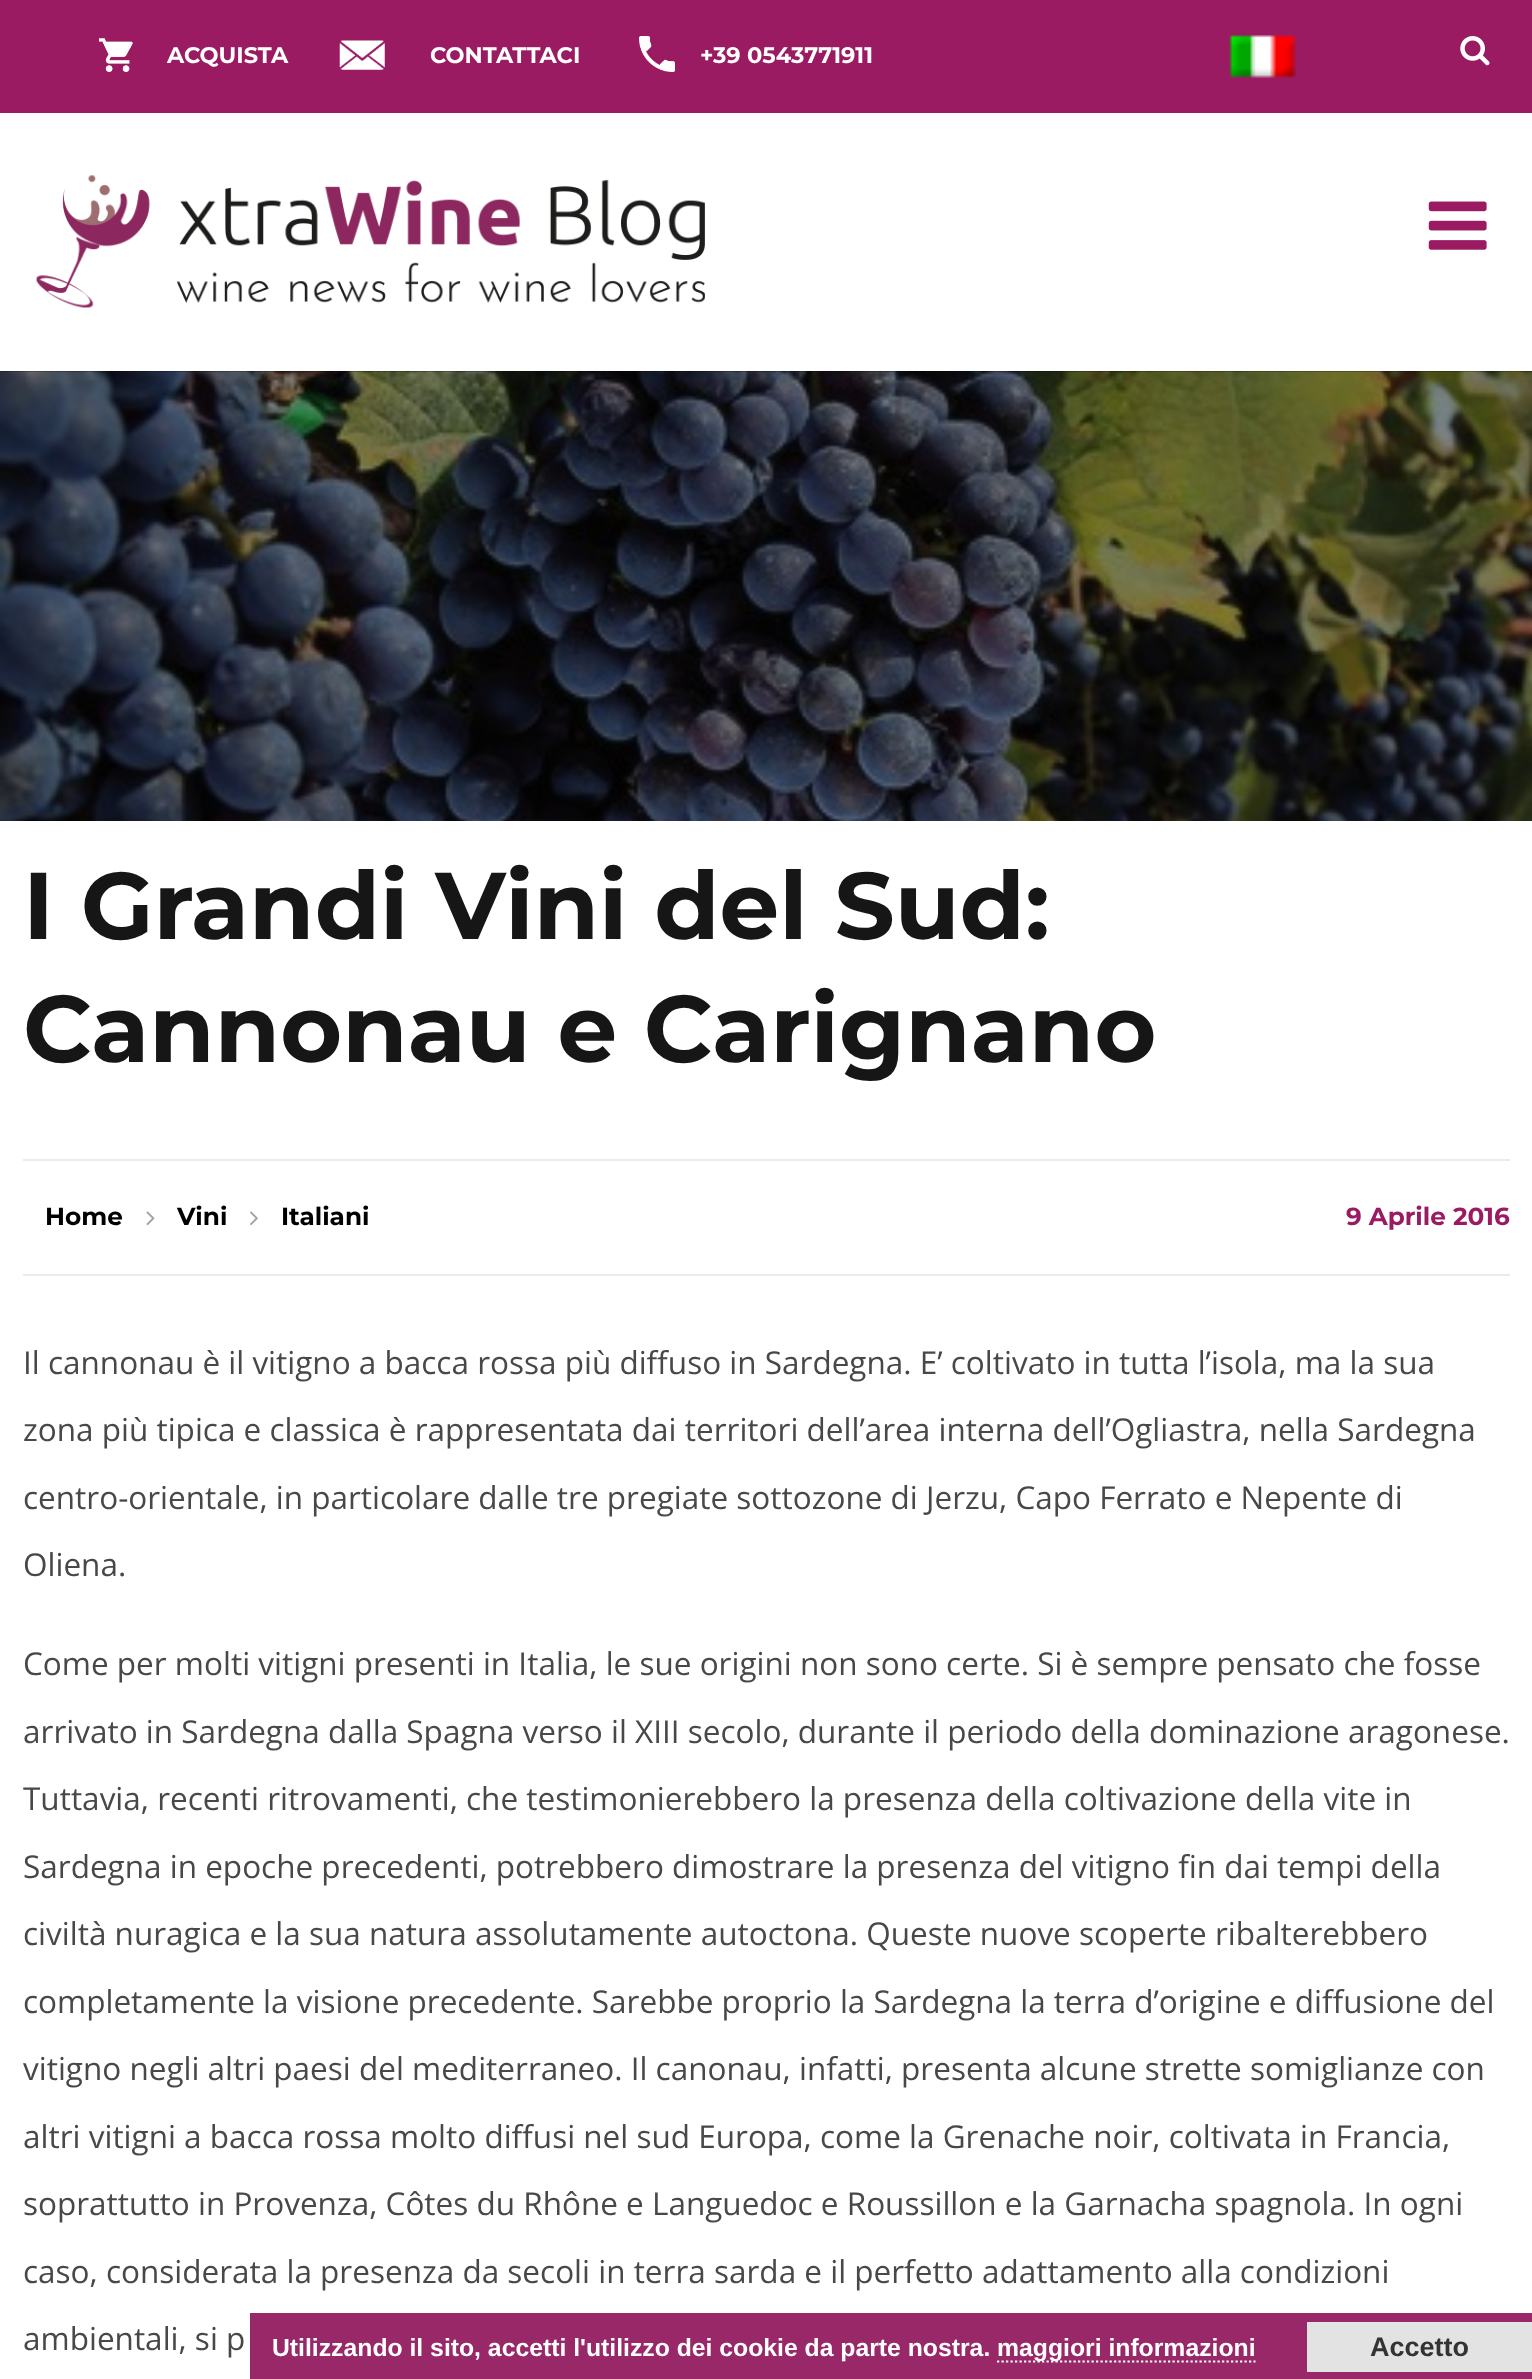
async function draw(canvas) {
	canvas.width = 1532;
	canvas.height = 2379;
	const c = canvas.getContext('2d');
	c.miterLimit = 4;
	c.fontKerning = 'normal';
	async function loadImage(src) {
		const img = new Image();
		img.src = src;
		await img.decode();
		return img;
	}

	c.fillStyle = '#fff';
	c.fillRect(0, 0, 1532, 2379);
	c.fillStyle = '#9a1b61';
	c.fillRect(0, 0, 1532, 113);
	c.drawImage(await loadImage('img1.png'), 99, 38, 34, 34);
	c.font = '100 22.5px Montserrat';
	c.fillStyle = '#fff';
	c.fillText('ACQUISTA', 167, 63);
	c.drawImage(await loadImage('img2.png'), 339, 40, 46, 30);
	c.fillText('CONTATTACI', 430, 63);
	c.drawImage(await loadImage('img3.png'), 639, 36, 36, 36);
	c.fillText('+39 0543771911', 700, 63);
	c.drawImage(await loadImage('img4.png'), 1229, 35, 67, 43);
	c.drawImage(await loadImage('img5.png'), 1460, 36, 30, 30);
	c.drawImage(await loadImage('img6.png'), 36, 175, 669, 133);
	c.drawImage(await loadImage('img7.png'), 1428, 201, 59, 49);
	c.fillStyle = '#000';
	c.fillRect(0, 371, 1532, 450);
	c.drawImage(await loadImage('img8.png'), 0, 371, 1532, 450);
	c.font = '100 94.5px Montserrat';
	c.fillStyle = '#161616';
	c.fillText('I Grandi Vini del Sud:', 23, 939);
	c.fillText('Cannonau e Carignano', 23, 1062);
	c.fillStyle = '#ebebeb';
	c.fillRect(23, 1159, 1487, 2);
	c.fillRect(23, 1274, 1487, 2);
	c.font = '100 24.75px Montserrat';
	c.fillStyle = '#000';
	c.fillText('Home', 45, 1225);
	c.drawImage(await loadImage('img9.png'), 146, 1211, 9, 15);
	c.fillText('Vini', 177, 1225);
	c.drawImage(await loadImage('img10.png'), 250, 1211, 8, 15);
	c.fillText('Italiani', 281, 1225);
	c.fillStyle = '#9a1b61';
	c.fillText('9 Aprile 2016', 1346, 1225);
	c.font = '31.5px Open Sans';
	c.fillStyle = '#484848';
	for (const [text, x, y] of [
		['Il cannonau è il vitigno a bacca rossa più diffuso in Sardegna. E’ coltivato in tutta l’isola, ma la sua', 23, 1374],
		['zona più tipica e classica è rappresentata dai territori dell’area interna dell’Ogliastra, nella Sardegna', 23, 1441],
		['centro-orientale, in particolare dalle tre pregiate sottozone di Jerzu, Capo Ferrato e Nepente di', 23, 1509],
		['Oliena.', 23, 1576],
		['Come per molti vitigni presenti in Italia, le sue origini non sono certe. Si è sempre pensato che fosse', 23, 1675],
		['arrivato in Sardegna dalla Spagna verso il XIII secolo, durante il periodo della dominazione aragonese.', 23, 1743],
		['Tuttavia, recenti ritrovamenti, che testimonierebbero la presenza della coltivazione della vite in', 23, 1810],
		['Sardegna in epoche precedenti, potrebbero dimostrare la presenza del vitigno fin dai tempi della', 23, 1878],
		['civiltà nuragica e la sua natura assolutamente autoctona. Queste nuove scoperte ribalterebbero', 23, 1945],
		['completamente la visione precedente. Sarebbe proprio la Sardegna la terra d’origine e diffusione del', 23, 2013],
		['vitigno negli altri paesi del mediterraneo. Il canonau, infatti, presenta alcune strette somiglianze con', 23, 2080],
		['altri vitigni a bacca rossa molto diffusi nel sud Europa, come la Grenache noir, coltivata in Francia,', 23, 2148],
		['soprattutto in Provenza, Côtes du Rhône e Languedoc e Roussillon e la Garnacha spagnola. In ogni', 23, 2215],
		['caso, considerata la presenza da secoli in terra sarda e il perfetto adattamento alla condizioni', 23, 2283],
		['ambientali, si p', 23, 2350],
	]) {
		c.fillText(text, x, y);
	}
	c.fillStyle = '#86024ed9';
	c.fillRect(250, 2313, 1282, 66);
	c.font = 'bold 24.75px Liberation Sans';
	c.fillStyle = '#fff';
	c.fillText('Utilizzando il sito, accetti l\'utilizzo dei cookie da parte nostra.', 272, 2356);
	c.beginPath();
	c.moveTo(997, 2361.5);
	c.lineTo(1255.5, 2361.5);
	c.strokeStyle = '#fff';
	c.lineWidth = 2.2;
	c.setLineDash([2.25, 2.25]);
	c.stroke();
	c.fillText('maggiori informazioni', 997, 2356);
	c.fillStyle = '#e3e3e3';
	c.fillRect(1307, 2322, 225, 50);
	c.font = 'bold 27px Liberation Sans';
	c.fillStyle = '#333';
	c.fillText('Accetto', 1370, 2356);
}

draw(document.querySelector('canvas'));
